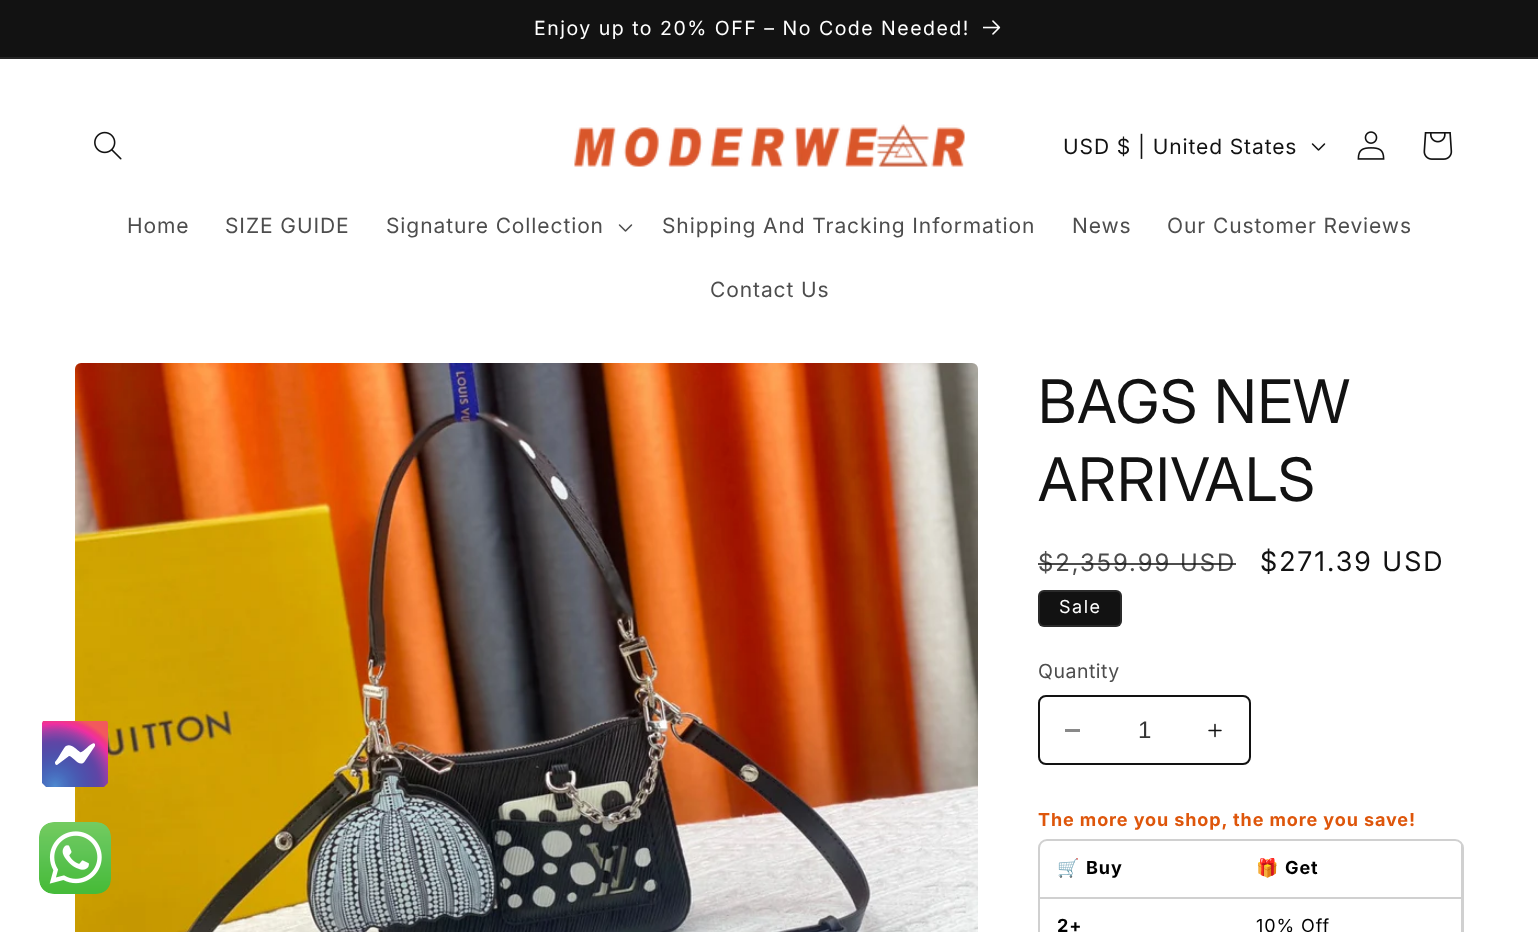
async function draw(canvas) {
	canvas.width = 1538;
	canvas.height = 932;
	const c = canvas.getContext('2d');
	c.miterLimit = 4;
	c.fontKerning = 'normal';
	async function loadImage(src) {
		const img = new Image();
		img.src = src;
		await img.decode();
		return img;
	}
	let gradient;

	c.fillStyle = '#fff';
	c.fillRect(0, 0, 1538, 932);
	c.fillStyle = '#121212';
	c.fillRect(0, 0, 1538, 57);
	c.fillStyle = '#252525';
	c.fillRect(0, 57, 1538, 2);
	c.letterSpacing = '1.5px';
	c.font = '19.5px "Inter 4"';
	c.fillStyle = '#fff';
	c.fillText('Enjoy up to 20% OFF – No Code Needed!', 534, 35);
	c.drawImage(await loadImage('img1.png'), 983, 20, 18, 15);
	c.drawImage(await loadImage('img2.png'), 94, 131, 28, 29);
	c.drawImage(await loadImage('img3.png'), 574, 124, 391, 43);
	c.letterSpacing = '0.9px';
	c.font = '21px "Inter 4"';
	c.fillStyle = '#121212';
	c.fillText('USD $ | United States', 1063, 154);
	c.drawImage(await loadImage('img4.png'), 1311, 143, 15, 8);
	c.drawImage(await loadImage('img5.png'), 1357, 131, 28, 29);
	c.drawImage(await loadImage('img6.png'), 1423, 132, 30, 28);
	c.fillStyle = '#4d4d4d';
	for (const [text, x, y] of [
		['Home', 127, 233],
		['SIZE GUIDE', 225, 233],
		['Signature Collection', 386, 233],
	]) {
		c.fillText(text, x, y);
	}
	c.drawImage(await loadImage('img7.png'), 618, 224, 15, 8);
	for (const [text, x, y] of [
		['Shipping And Tracking Information', 662, 233],
		['News', 1072, 233],
		['Our Customer Reviews', 1167, 233],
		['Contact Us', 710, 297],
	]) {
		c.fillText(text, x, y);
	}
	c.drawImage(await loadImage('img8.png'), 75, 363, 903, 569);
	gradient = c.createRadialGradient(55, 786, 0, 55, 786, 71);
	gradient.addColorStop(0, '#4e89cf');
	gradient.addColorStop(0, '#4e89cf');
	gradient.addColorStop(0.01, '#4e88cf');
	gradient.addColorStop(0.01, '#4e87ce');
	gradient.addColorStop(0.02, '#4e87ce');
	gradient.addColorStop(0.02, '#4e86cd');
	gradient.addColorStop(0.02, '#4e85cd');
	gradient.addColorStop(0.03, '#4d84cc');
	gradient.addColorStop(0.03, '#4d83cc');
	gradient.addColorStop(0.04, '#4d83cb');
	gradient.addColorStop(0.04, '#4d82cb');
	gradient.addColorStop(0.04, '#4d81ca');
	gradient.addColorStop(0.05, '#4c80ca');
	gradient.addColorStop(0.05, '#4c80ca');
	gradient.addColorStop(0.05, '#4c7fc9');
	gradient.addColorStop(0.06, '#4c7fc9');
	gradient.addColorStop(0.06, '#4b7ec8');
	gradient.addColorStop(0.07, '#4b7dc8');
	gradient.addColorStop(0.07, '#4b7dc8');
	gradient.addColorStop(0.07, '#4b7cc7');
	gradient.addColorStop(0.08, '#4b7bc7');
	gradient.addColorStop(0.08, '#4b7bc7');
	gradient.addColorStop(0.09, '#4b7ac6');
	gradient.addColorStop(0.09, '#4b79c6');
	gradient.addColorStop(0.09, '#4a78c5');
	gradient.addColorStop(0.1, '#4a78c5');
	gradient.addColorStop(0.1, '#4a77c4');
	gradient.addColorStop(0.11, '#4a77c4');
	gradient.addColorStop(0.11, '#4a76c4');
	gradient.addColorStop(0.11, '#4a75c3');
	gradient.addColorStop(0.12, '#4a75c3');
	gradient.addColorStop(0.12, '#4a74c2');
	gradient.addColorStop(0.12, '#4973c2');
	gradient.addColorStop(0.13, '#4973c2');
	gradient.addColorStop(0.13, '#4972c1');
	gradient.addColorStop(0.14, '#4971c1');
	gradient.addColorStop(0.14, '#4871c0');
	gradient.addColorStop(0.14, '#4870c0');
	gradient.addColorStop(0.15, '#4870c0');
	gradient.addColorStop(0.15, '#496fc0');
	gradient.addColorStop(0.16, '#496fbf');
	gradient.addColorStop(0.16, '#496ebf');
	gradient.addColorStop(0.16, '#496ebf');
	gradient.addColorStop(0.17, '#486dbe');
	gradient.addColorStop(0.17, '#486dbe');
	gradient.addColorStop(0.18, '#486cbe');
	gradient.addColorStop(0.18, '#486cbd');
	gradient.addColorStop(0.18, '#486bbd');
	gradient.addColorStop(0.19, '#486bbc');
	gradient.addColorStop(0.19, '#486abc');
	gradient.addColorStop(0.2, '#4869bc');
	gradient.addColorStop(0.2, '#4769bb');
	gradient.addColorStop(0.2, '#4768bb');
	gradient.addColorStop(0.21, '#4868bb');
	gradient.addColorStop(0.21, '#4867ba');
	gradient.addColorStop(0.21, '#4866ba');
	gradient.addColorStop(0.22, '#4866b9');
	gradient.addColorStop(0.22, '#4866b9');
	gradient.addColorStop(0.23, '#4865b9');
	gradient.addColorStop(0.23, '#4865b9');
	gradient.addColorStop(0.24, '#4864b8');
	gradient.addColorStop(0.25, '#4864b8');
	gradient.addColorStop(0.25, '#4863b8');
	gradient.addColorStop(0.25, '#4863b7');
	gradient.addColorStop(0.26, '#4862b7');
	gradient.addColorStop(0.26, '#4862b7');
	gradient.addColorStop(0.27, '#4861b7');
	gradient.addColorStop(0.27, '#4861b6');
	gradient.addColorStop(0.27, '#4960b6');
	gradient.addColorStop(0.28, '#4960b6');
	gradient.addColorStop(0.28, '#495fb5');
	gradient.addColorStop(0.29, '#495fb5');
	gradient.addColorStop(0.29, '#495eb5');
	gradient.addColorStop(0.29, '#495eb4');
	gradient.addColorStop(0.3, '#495eb4');
	gradient.addColorStop(0.3, '#495db4');
	gradient.addColorStop(0.3, '#495db3');
	gradient.addColorStop(0.31, '#495cb3');
	gradient.addColorStop(0.32, '#495cb3');
	gradient.addColorStop(0.32, '#495bb3');
	gradient.addColorStop(0.32, '#495bb2');
	gradient.addColorStop(0.33, '#4a5ab2');
	gradient.addColorStop(0.33, '#4a5ab2');
	gradient.addColorStop(0.34, '#4a59b1');
	gradient.addColorStop(0.34, '#4a59b1');
	gradient.addColorStop(0.35, '#4b58b1');
	gradient.addColorStop(0.35, '#4b58b0');
	gradient.addColorStop(0.36, '#4b58b0');
	gradient.addColorStop(0.36, '#4b57b0');
	gradient.addColorStop(0.37, '#4b57b0');
	gradient.addColorStop(0.37, '#4c56af');
	gradient.addColorStop(0.38, '#4c56af');
	gradient.addColorStop(0.38, '#4c55af');
	gradient.addColorStop(0.39, '#4c55ae');
	gradient.addColorStop(0.39, '#4d54ae');
	gradient.addColorStop(0.4, '#4d54ae');
	gradient.addColorStop(0.4, '#4d53ae');
	gradient.addColorStop(0.41, '#4e53ad');
	gradient.addColorStop(0.41, '#4e52ad');
	gradient.addColorStop(0.42, '#4e52ad');
	gradient.addColorStop(0.43, '#4f52ad');
	gradient.addColorStop(0.43, '#4f51ac');
	gradient.addColorStop(0.43, '#4f51ac');
	gradient.addColorStop(0.44, '#4f50ac');
	gradient.addColorStop(0.45, '#4f50ab');
	gradient.addColorStop(0.46, '#504fab');
	gradient.addColorStop(0.47, '#514fab');
	gradient.addColorStop(0.47, '#514eaa');
	gradient.addColorStop(0.48, '#524eaa');
	gradient.addColorStop(0.49, '#534daa');
	gradient.addColorStop(0.5, '#534ca9');
	gradient.addColorStop(0.5, '#544ca9');
	gradient.addColorStop(0.51, '#544ca9');
	gradient.addColorStop(0.52, '#544ba9');
	gradient.addColorStop(0.52, '#554ba8');
	gradient.addColorStop(0.53, '#554ba8');
	gradient.addColorStop(0.53, '#564aa8');
	gradient.addColorStop(0.54, '#564aa8');
	gradient.addColorStop(0.54, '#574aa8');
	gradient.addColorStop(0.54, '#5749a8');
	gradient.addColorStop(0.55, '#5749a7');
	gradient.addColorStop(0.55, '#5849a7');
	gradient.addColorStop(0.56, '#5849a7');
	gradient.addColorStop(0.56, '#5949a7');
	gradient.addColorStop(0.57, '#5948a7');
	gradient.addColorStop(0.57, '#5a48a7');
	gradient.addColorStop(0.57, '#5a48a7');
	gradient.addColorStop(0.58, '#5b47a7');
	gradient.addColorStop(0.58, '#5b47a6');
	gradient.addColorStop(0.59, '#5c47a6');
	gradient.addColorStop(0.59, '#5c47a6');
	gradient.addColorStop(0.6, '#5d47a6');
	gradient.addColorStop(0.6, '#5d46a6');
	gradient.addColorStop(0.61, '#5e46a6');
	gradient.addColorStop(0.61, '#5f46a6');
	gradient.addColorStop(0.61, '#5f46a6');
	gradient.addColorStop(0.62, '#6046a6');
	gradient.addColorStop(0.62, '#6146a6');
	gradient.addColorStop(0.62, '#6245a6');
	gradient.addColorStop(0.63, '#6345a5');
	gradient.addColorStop(0.63, '#6445a5');
	gradient.addColorStop(0.64, '#6644a5');
	gradient.addColorStop(0.64, '#6744a5');
	gradient.addColorStop(0.64, '#6844a5');
	gradient.addColorStop(0.65, '#6944a5');
	gradient.addColorStop(0.65, '#6a44a5');
	gradient.addColorStop(0.66, '#6c44a5');
	gradient.addColorStop(0.66, '#6d44a5');
	gradient.addColorStop(0.66, '#6e44a5');
	gradient.addColorStop(0.67, '#7043a5');
	gradient.addColorStop(0.67, '#7144a5');
	gradient.addColorStop(0.68, '#7344a6');
	gradient.addColorStop(0.68, '#7544a6');
	gradient.addColorStop(0.68, '#7643a6');
	gradient.addColorStop(0.69, '#7843a6');
	gradient.addColorStop(0.69, '#7943a6');
	gradient.addColorStop(0.7, '#7b43a6');
	gradient.addColorStop(0.7, '#7c43a6');
	gradient.addColorStop(0.7, '#7e43a5');
	gradient.addColorStop(0.71, '#8042a5');
	gradient.addColorStop(0.71, '#8242a5');
	gradient.addColorStop(0.71, '#8342a5');
	gradient.addColorStop(0.72, '#8542a5');
	gradient.addColorStop(0.72, '#8742a5');
	gradient.addColorStop(0.73, '#8842a5');
	gradient.addColorStop(0.73, '#8a41a5');
	gradient.addColorStop(0.73, '#8c41a5');
	gradient.addColorStop(0.74, '#8e41a5');
	gradient.addColorStop(0.74, '#9041a5');
	gradient.addColorStop(0.75, '#9241a5');
	gradient.addColorStop(0.75, '#9440a5');
	gradient.addColorStop(0.75, '#9640a5');
	gradient.addColorStop(0.76, '#9840a5');
	gradient.addColorStop(0.76, '#9b40a5');
	gradient.addColorStop(0.77, '#9d3fa5');
	gradient.addColorStop(0.77, '#9f3fa5');
	gradient.addColorStop(0.77, '#a13fa5');
	gradient.addColorStop(0.78, '#a43ea5');
	gradient.addColorStop(0.78, '#a63ea5');
	gradient.addColorStop(0.79, '#a93da5');
	gradient.addColorStop(0.79, '#ab3da5');
	gradient.addColorStop(0.79, '#ad3da5');
	gradient.addColorStop(0.8, '#b03da5');
	gradient.addColorStop(0.8, '#b33ca5');
	gradient.addColorStop(0.8, '#b63ba4');
	gradient.addColorStop(0.81, '#b93ba4');
	gradient.addColorStop(0.81, '#bc3aa4');
	gradient.addColorStop(0.82, '#bf39a4');
	gradient.addColorStop(0.82, '#c239a4');
	gradient.addColorStop(0.82, '#c638a3');
	gradient.addColorStop(0.83, '#c937a3');
	gradient.addColorStop(0.83, '#cc37a3');
	gradient.addColorStop(0.84, '#cf36a3');
	gradient.addColorStop(0.84, '#d335a3');
	gradient.addColorStop(0.84, '#d735a3');
	gradient.addColorStop(0.85, '#da34a2');
	gradient.addColorStop(0.85, '#dd32a2');
	gradient.addColorStop(0.86, '#e032a2');
	gradient.addColorStop(0.86, '#e331a1');
	gradient.addColorStop(0.86, '#e630a1');
	gradient.addColorStop(0.87, '#e930a1');
	gradient.addColorStop(0.87, '#ec2fa1');
	gradient.addColorStop(0.88, '#ef2fa1');
	gradient.addColorStop(0.88, '#f02fa0');
	gradient.addColorStop(0.88, '#f0309d');
	gradient.addColorStop(0.89, '#f0319b');
	gradient.addColorStop(0.89, '#f03298');
	gradient.addColorStop(0.89, '#f03297');
	gradient.addColorStop(0.9, '#f03394');
	gradient.addColorStop(0.9, '#f03492');
	gradient.addColorStop(0.91, '#f03490');
	gradient.addColorStop(0.91, '#f0358e');
	gradient.addColorStop(0.91, '#f0368c');
	gradient.addColorStop(0.92, '#f0368a');
	gradient.addColorStop(0.92, '#f03789');
	gradient.addColorStop(0.93, '#f03787');
	gradient.addColorStop(0.93, '#f03885');
	gradient.addColorStop(0.93, '#f03983');
	gradient.addColorStop(0.94, '#f03b81');
	gradient.addColorStop(0.94, '#f03d7f');
	gradient.addColorStop(0.95, '#f03f7c');
	gradient.addColorStop(0.95, '#f1417a');
	gradient.addColorStop(0.95, '#f14377');
	gradient.addColorStop(0.96, '#f14575');
	gradient.addColorStop(0.96, '#f14672');
	gradient.addColorStop(0.96, '#f14870');
	gradient.addColorStop(0.97, '#f14a6e');
	gradient.addColorStop(0.97, '#f14c6b');
	gradient.addColorStop(0.98, '#f24e69');
	gradient.addColorStop(0.98, '#f25066');
	gradient.addColorStop(0.98, '#f25264');
	gradient.addColorStop(0.99, '#f25462');
	gradient.addColorStop(0.99, '#f25660');
	gradient.addColorStop(1, '#f2585e');
	gradient.addColorStop(1, '#f2595c');
	c.fillStyle = gradient;
	c.beginPath();
	c.moveTo(108, 723);
	c.lineTo(108, 783);
	c.lineTo(104, 787);
	c.lineTo(46, 787);
	c.lineTo(42, 783);
	c.lineTo(42, 723);
	c.lineTo(43, 721);
	c.lineTo(107, 721);
	c.closePath();
	c.fill();
	c.fillStyle = '#fff';
	c.beginPath();
	c.moveTo(55, 762);
	c.bezierCurveTo(58, 759, 64, 747, 66, 746);
	c.bezierCurveTo(71, 743, 76, 749, 80, 752);
	c.bezierCurveTo(83, 754, 92, 740, 95, 744);
	c.lineTo(95, 746);
	c.lineTo(85, 761);
	c.bezierCurveTo(80, 769, 73, 756, 69, 756);
	c.lineTo(57, 765);
	c.bezierCurveTo(55, 765, 55, 763, 55, 762);
	c.fill('evenodd');
	c.font = '60px Inter';
	c.fillStyle = '#121212';
	c.fillText('BAGS NEW', 1038, 423);
	c.fillText('ARRIVALS', 1038, 501);
	c.letterSpacing = '2px';
	c.font = '24px "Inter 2"';
	c.fillStyle = '#4d4d4d';
	c.fillText('$2,359.99 USD', 1038, 571);
	c.fillStyle = '#121212bf';
	c.fillRect(1038, 563, 198, 2);
	c.font = '27px "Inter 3"';
	c.fillStyle = '#121212';
	c.fillText('$271.39 USD', 1260, 571);
	c.beginPath();
	c.roundRect(1038, 590, 84, 37, 6);
	c.fill();
	c.beginPath();
	c.roundRect(1039, 591, 82, 35, 5);
	c.strokeStyle = '#ffffff1a';
	c.lineWidth = 2;
	c.stroke();
	c.letterSpacing = '1.5px';
	c.font = '18px "Inter 4"';
	c.fillStyle = '#fff';
	c.fillText('Sale', 1059, 613);
	c.letterSpacing = '0.5px';
	c.font = '19.5px "Inter 4"';
	c.fillStyle = '#4d4d4d';
	c.fillText('Quantity', 1038, 678);
	c.fillStyle = '#898989';
	c.fillRect(1065, 729, 15, 3);
	c.drawImage(await loadImage('img9.png'), 1208, 723, 14, 15);
	c.beginPath();
	c.roundRect(1039, 696, 211, 68, 7);
	c.strokeStyle = '#121212';
	c.stroke();
	c.letterSpacing = '0px';
	c.font = '24px Liberation Sans';
	c.fillStyle = '#363636';
	c.fillText('1', 1138, 738);
	c.letterSpacing = '0.9px';
	c.font = 'bold 18px Inter';
	c.fillStyle = '#de560b';
	c.fillText('The more you shop, the more you save!', 1038, 826);
	c.beginPath();
	c.roundRect(1039, 840, 424, 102, 8);
	c.strokeStyle = '#d0d0d0';
	c.stroke();
	c.fillStyle = '#d0d0d0';
	c.fillRect(1040, 897, 423, 2);
	c.fillRect(1461, 897, 1, 35);
	c.save();
	c.beginPath();
	c.roundRect(1040, 840, 423, 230, 8);
	c.clip();
	c.fillRect(1461, 840, 2, 59);
	c.restore();
	c.font = 'bold 18px Noto Color Emoji';
	c.fillStyle = '#000';
	c.fillText('🛒', 1057, 874);
	c.font = 'bold 18px Inter';
	c.fillText('Buy', 1086, 874);
	c.font = 'bold 18px Noto Color Emoji';
	c.fillText('🎁', 1256, 874);
	c.font = 'bold 18px Inter';
	c.fillText('Get', 1285, 874);
	c.fillText('2+', 1057, 932);
	c.font = '18px "Inter 4"';
	c.fillText('10% Off', 1256, 932);
	c.drawImage(await loadImage('img10.png'), 39, 822, 72, 72);
}

draw(document.querySelector('canvas'));
